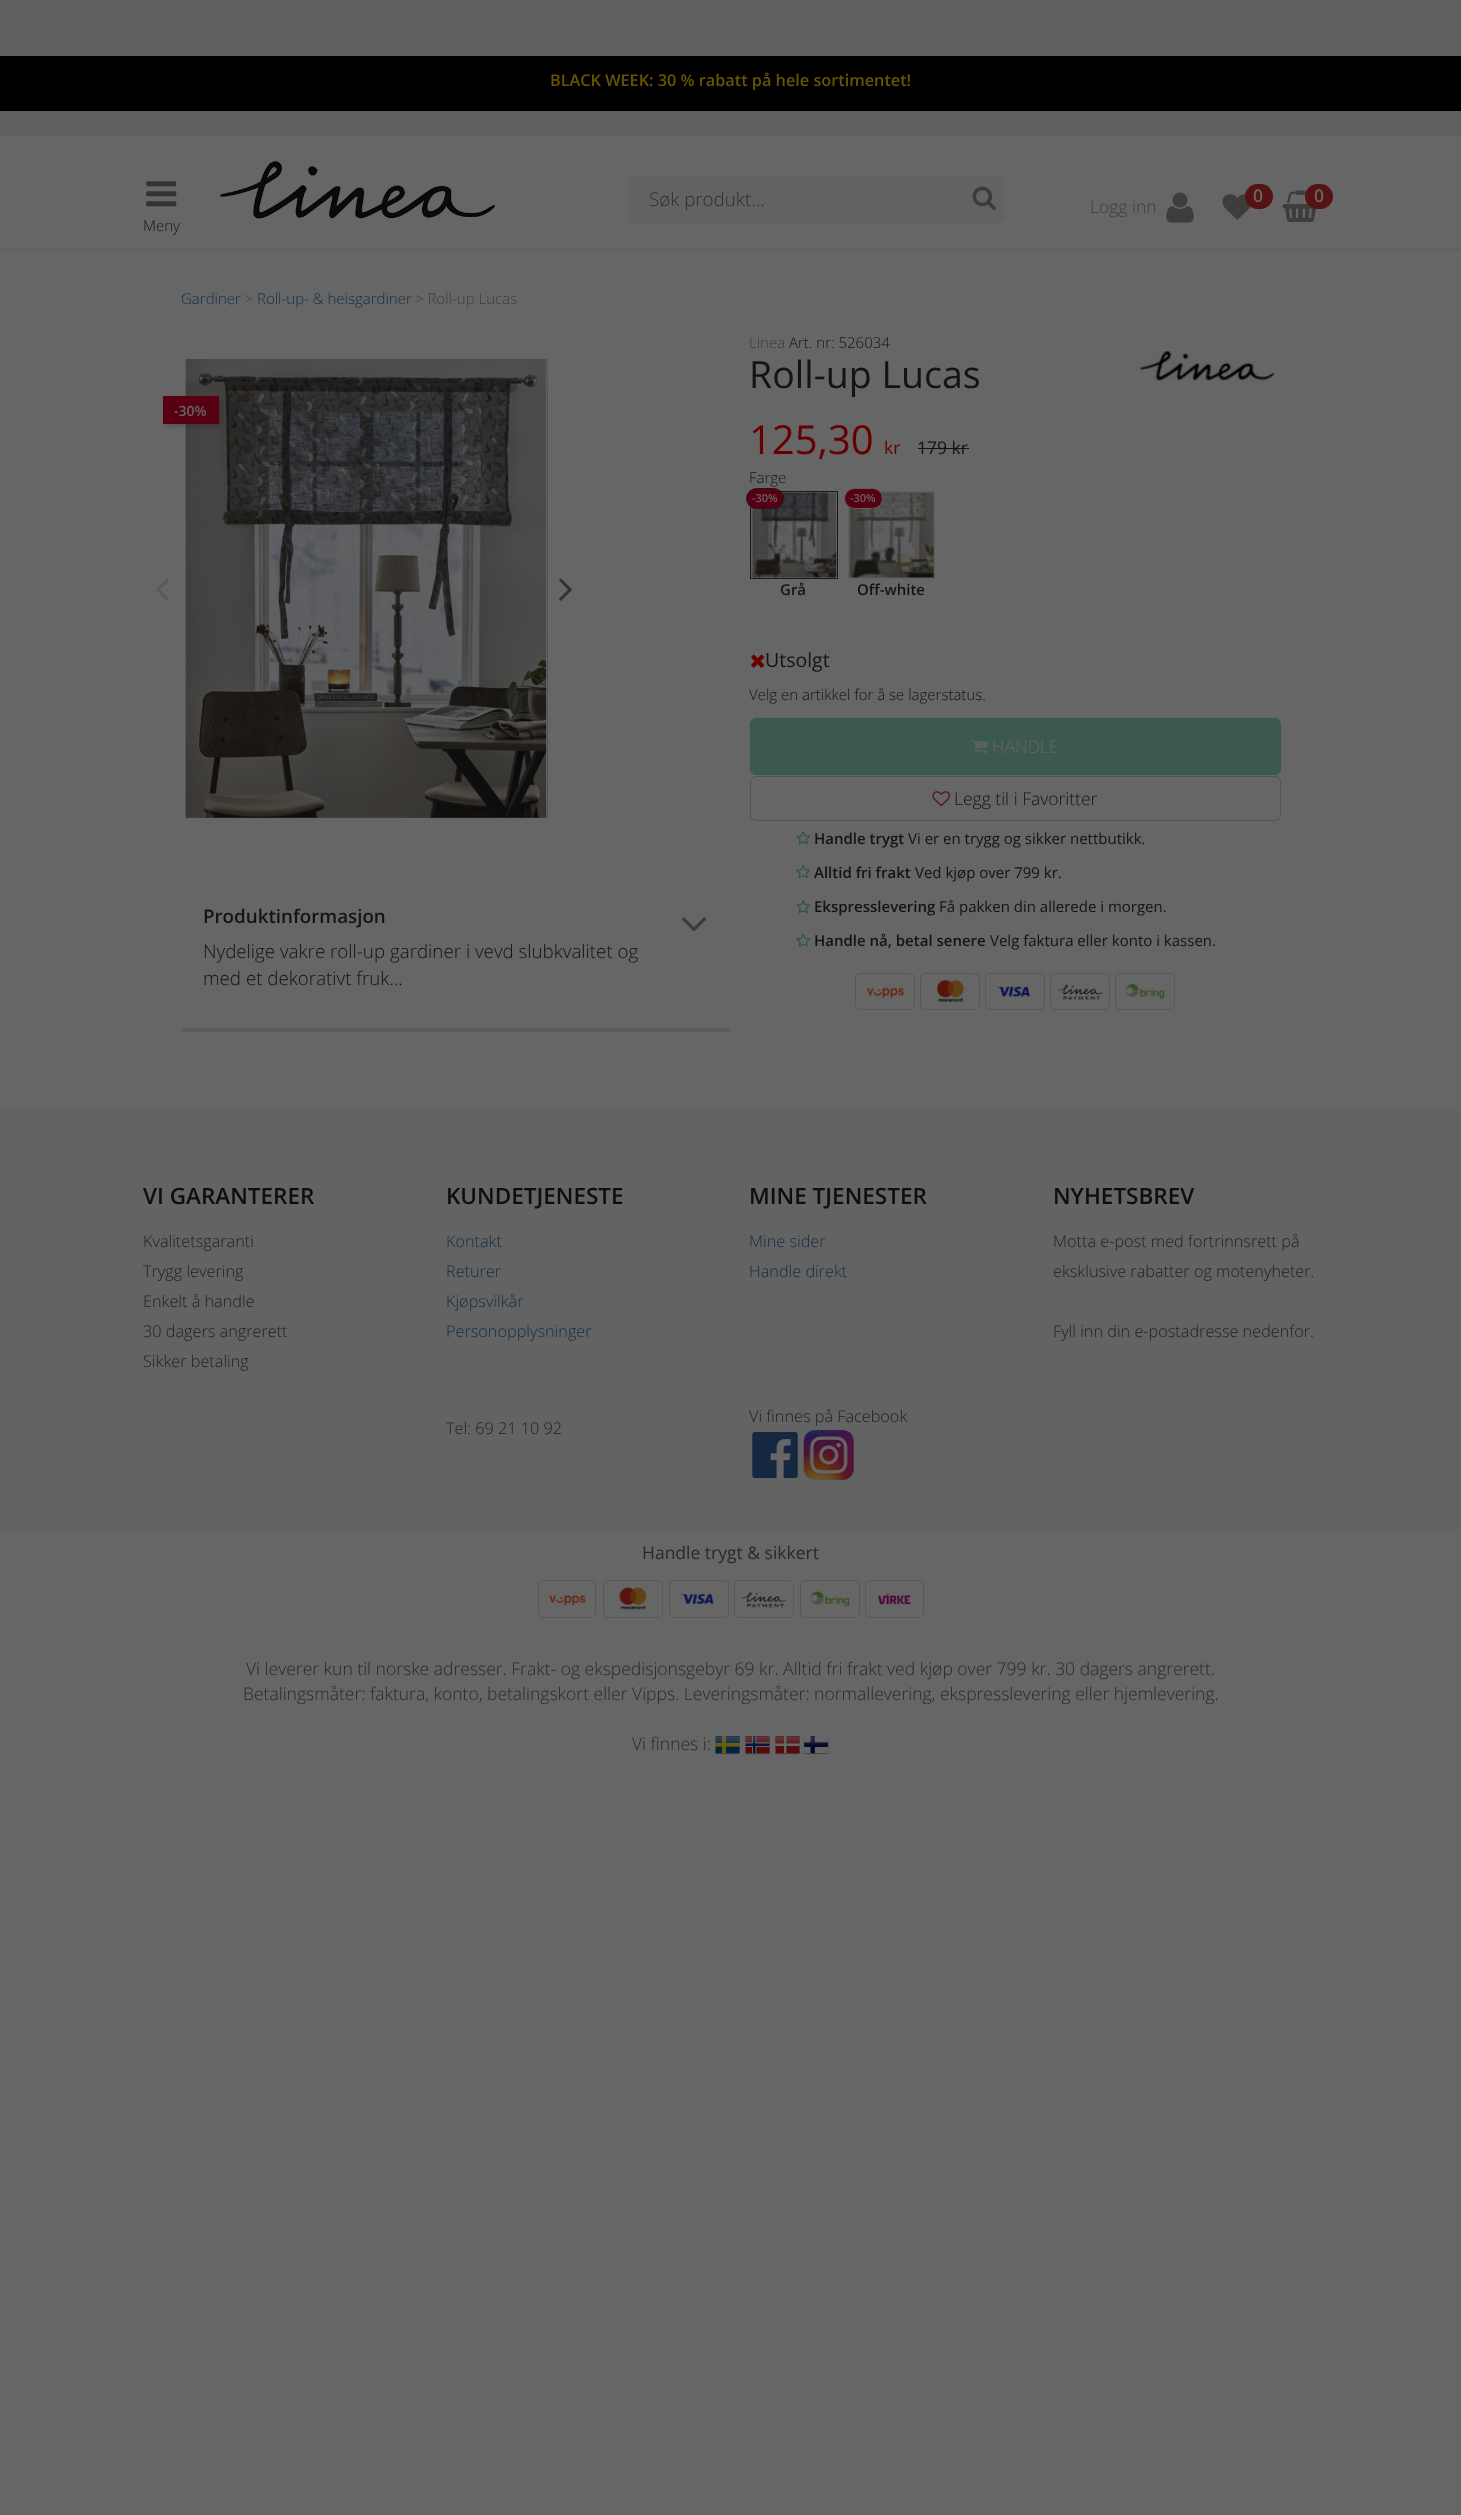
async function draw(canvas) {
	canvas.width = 1461;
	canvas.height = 2515;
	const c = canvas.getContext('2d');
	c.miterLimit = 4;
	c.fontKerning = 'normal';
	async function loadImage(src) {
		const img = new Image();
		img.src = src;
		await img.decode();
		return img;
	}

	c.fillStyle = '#666';
	c.fillRect(0, 0, 1461, 2515);
	for (const [x, y, w, h, color] of [
		[0, 248, 1461, 3, '#616161'],
		[0, 0, 1461, 136, '#606060'],
		[0, 56, 1461, 55, '#000'],
	]) {
		c.fillStyle = color;
		c.fillRect(x, y, w, h);
	}
	c.font = '600 16.25px Open Sans';
	c.fillStyle = '#665600';
	c.fillText('BLACK WEEK: 30 % rabatt på hele sortimentet!', 550, 86);
	c.fillStyle = '#626262';
	c.beginPath();
	c.roundRect(629.5, 176.5, 374, 46, 5.5);
	c.fill();
	c.strokeStyle = '#5f5f5f';
	c.stroke();
	c.font = '300 18.75px Open Sans';
	c.fillStyle = '#2f2f2f';
	c.fillText('Søk produkt...', 649, 206);
	c.drawImage(await loadImage('img1.png'), 972, 186, 24, 24);
	c.drawImage(await loadImage('img2.png'), 1222, 194, 29, 26);
	c.fillStyle = '#561214';
	c.beginPath();
	c.roundRect(1245, 184, 28, 25, 12.5);
	c.fill();
	c.font = '600 17.5px Open Sans';
	c.fillStyle = '#666';
	c.fillText('0', 1253, 202);
	c.drawImage(await loadImage('img3.png'), 1282, 190, 36, 32);
	c.fillStyle = '#561214';
	c.beginPath();
	c.roundRect(1305, 184, 28, 25, 12.5);
	c.fill();
	c.fillStyle = '#666';
	c.fillText('0', 1314, 202);
	c.font = '300 17.5px Open Sans';
	c.fillStyle = '#3d3d3d';
	c.fillText('Logg inn', 1090, 213);
	c.drawImage(await loadImage('img4.png'), 1166, 192, 28, 31);
	c.drawImage(await loadImage('img5.png'), 220, 161, 275, 58);
	c.drawImage(await loadImage('img6.png'), 146, 181, 31, 26);
	c.font = '300 15px Open Sans';
	c.fillStyle = '#141414';
	c.fillText('Meny', 143, 231);
	c.fillStyle = '#132e44';
	c.fillText('Gardiner', 181, 304);
	c.fillStyle = '#3d3d3d';
	c.fillText('>', 244, 304);
	c.fillStyle = '#132e44';
	c.fillText('Roll-up- & heisgardiner', 257, 304);
	c.fillStyle = '#3d3d3d';
	c.fillText('> Roll-up Lucas', 415, 304);
	c.drawImage(await loadImage('img7.png'), 156, 578, 13, 23);
	c.drawImage(await loadImage('img8.png'), 185, 359, 362, 459);
	c.drawImage(await loadImage('img9.png'), 547, 359, 1, 459);
	c.drawImage(await loadImage('img10.png'), 559, 578, 13, 23);
	c.fillStyle = '#00000033';
	c.filter = 'blur(2.5px)';
	c.beginPath();
	c.rect(165, 399, 56, 27);
	c.fill();
	c.filter = 'none';
	c.fillStyle = '#580013';
	c.fillRect(163, 396, 56, 28);
	c.font = '600 14px Open Sans';
	c.fillStyle = '#666';
	c.fillText('-30%', 174, 416);
	c.fillStyle = '#5c5c5c';
	c.fillRect(181, 1028, 550, 4);
	c.font = '600 18.75px Open Sans';
	c.fillStyle = '#141414';
	c.fillText('Produktinformasjon', 203, 923);
	c.drawImage(await loadImage('img11.png'), 682, 917, 25, 15);
	c.font = '300 18.75px Open Sans';
	c.fillText('Nydelige vakre roll-up gardiner i vevd slubkvalitet og', 203, 958);
	c.fillText('med et dekorativt fruk...', 203, 985);
	c.font = '300 15px Open Sans';
	c.fillStyle = '#3d3d3d';
	c.fillText('Linea', 749, 348);
	c.fillStyle = '#141414';
	c.fillText('Art. nr: 526034', 789, 348);
	c.font = '37.5px Open Sans';
	c.fillText('Roll-up Lucas', 749, 388);
	c.drawImage(await loadImage('img12.png'), 1134, 351, 140, 30);
	c.font = '40px Open Sans';
	c.fillStyle = '#600';
	c.fillText('125,30', 749, 454);
	c.font = '17.5px Open Sans';
	c.fillText('kr', 884, 454);
	c.fillStyle = '#141414';
	c.fillText('179 kr', 917, 454);
	c.fillRect(918, 448, 51, 1);
	c.font = '300 15px Open Sans';
	c.fillText('Farge', 749, 483);
	c.drawImage(await loadImage('img13.png'), 751, 492, 86, 86);
	c.strokeStyle = '#1a1a1a';
	c.strokeRect(750.5, 491.5, 87, 87);
	c.fillStyle = '#580013';
	c.beginPath();
	c.roundRect(746.5, 488.5, 37, 20, 10);
	c.fill();
	c.stroke();
	c.font = '600 11px Open Sans';
	c.fillStyle = '#666';
	c.fillText('-30%', 752, 502);
	c.font = '600 15px Open Sans';
	c.fillStyle = '#141414';
	c.fillText('Grå', 780, 595);
	c.drawImage(await loadImage('img14.png'), 849, 492, 85, 86);
	c.strokeStyle = '#5f5f5f';
	c.strokeRect(848.5, 491.5, 86, 87);
	c.fillStyle = '#580013';
	c.beginPath();
	c.roundRect(844.5, 488.5, 38, 20, 10);
	c.fill();
	c.stroke();
	c.font = '600 11px Open Sans';
	c.fillStyle = '#666';
	c.fillText('-30%', 850, 502);
	c.font = '600 15px Open Sans';
	c.fillStyle = '#141414';
	c.fillText('Off-white', 857, 595);
	c.drawImage(await loadImage('img15.png'), 751, 654, 14, 14);
	c.font = '19.5px Open Sans';
	c.fillText('Utsolgt', 765, 667);
	c.font = '300 15px Open Sans';
	c.fillText('Velg en artikkel for å se lagerstatus.', 749, 700);
	c.fillStyle = '#3c5950';
	c.beginPath();
	c.roundRect(750.5, 718.5, 530, 56, 5.5);
	c.fill();
	c.strokeStyle = '#37584e';
	c.stroke();
	c.drawImage(await loadImage('img16.png'), 971, 740, 17, 14);
	c.font = '300 17.5px Open Sans';
	c.fillStyle = '#666';
	c.fillText('HANDLE', 992, 753);
	c.beginPath();
	c.roundRect(750.5, 776.5, 530, 44, 5.5);
	c.strokeStyle = '#525252';
	c.stroke();
	c.drawImage(await loadImage('img17.png'), 932, 791, 18, 16);
	c.fillStyle = '#141414';
	c.fillText('Legg til i Favoritter', 954, 805);
	c.drawImage(await loadImage('img18.png'), 796, 831, 15, 14);
	c.font = '600 15px Open Sans';
	c.fillText('Handle trygt', 814, 844);
	c.font = '15px Open Sans';
	c.fillText('Vi er en trygg og sikker nettbutikk.', 908, 844);
	c.drawImage(await loadImage('img19.png'), 796, 865, 15, 14);
	c.font = '600 15px Open Sans';
	c.fillText('Alltid fri frakt', 814, 878);
	c.font = '15px Open Sans';
	c.fillText('Ved kjøp over 799 kr.', 915, 878);
	c.drawImage(await loadImage('img19.png'), 796, 900, 15, 14);
	c.font = '600 15px Open Sans';
	c.fillText('Ekspresslevering', 814, 912);
	c.font = '15px Open Sans';
	c.fillText('Få pakken din allerede i morgen.', 939, 912);
	c.drawImage(await loadImage('img20.png'), 796, 933, 15, 14);
	c.font = '600 15px Open Sans';
	c.fillText('Handle nå, betal senere', 814, 946);
	c.font = '15px Open Sans';
	c.fillText('Velg faktura eller konto i kassen.', 990, 946);
	c.beginPath();
	c.roundRect(855.5, 973.5, 59, 36, 4.5);
	c.strokeStyle = '#585858';
	c.stroke();
	c.beginPath();
	c.roundRect(920.5, 973.5, 59, 36, 4.5);
	c.stroke();
	c.beginPath();
	c.roundRect(985.5, 973.5, 59, 36, 4.5);
	c.stroke();
	c.beginPath();
	c.roundRect(1050.5, 973.5, 59, 36, 4.5);
	c.stroke();
	c.beginPath();
	c.roundRect(1115.5, 973.5, 59, 36, 4.5);
	c.stroke();
	c.drawImage(await loadImage('img21.png'), 866, 987, 39, 12);
	c.drawImage(await loadImage('img22.png'), 925, 977, 50, 29);
	c.drawImage(await loadImage('img23.png'), 997, 986, 33, 11);
	c.drawImage(await loadImage('img24.png'), 1057, 984, 46, 17);
	c.drawImage(await loadImage('img25.png'), 1125, 983, 40, 17);
	c.fillStyle = '#636363';
	c.fillRect(0, 1106, 1461, 424);
	c.font = '600 22.5px Open Sans';
	c.fillStyle = '#0e0e0e';
	c.fillText('VI GARANTERER', 143, 1204);
	c.font = '300 16.25px Open Sans';
	c.fillStyle = '#222';
	for (const [text, x, y] of [
		['Kvalitetsgaranti', 143, 1247],
		['Trygg levering', 143, 1277],
		['Enkelt å handle', 143, 1307],
		['30 dagers angrerett', 143, 1337],
		['Sikker betaling', 143, 1367],
	]) {
		c.fillText(text, x, y);
	}
	c.font = '600 22.5px Open Sans';
	c.fillStyle = '#0e0e0e';
	c.fillText('KUNDETJENESTE', 446, 1204);
	c.font = '300 16.25px Open Sans';
	c.fillStyle = '#132e44';
	for (const [text, x, y] of [
		['Kontakt', 446, 1247],
		['Returer', 446, 1277],
		['Kjøpsvilkår', 446, 1307],
		['Personopplysninger', 446, 1337],
	]) {
		c.fillText(text, x, y);
	}
	c.font = '600 22.5px Open Sans';
	c.fillStyle = '#0e0e0e';
	c.fillText('MINE TJENESTER', 749, 1204);
	c.font = '300 16.25px Open Sans';
	c.fillStyle = '#132e44';
	c.fillText('Mine sider', 749, 1247);
	c.fillText('Handle direkt', 749, 1277);
	c.font = '600 22.5px Open Sans';
	c.fillStyle = '#0e0e0e';
	c.fillText('NYHETSBREV', 1053, 1204);
	c.font = '300 16.25px Open Sans';
	c.fillStyle = '#222';
	for (const [text, x, y] of [
		['Motta e-post med fortrinnsrett på', 1053, 1247],
		['eksklusive rabatter og motenyheter.', 1053, 1277],
		['Fyll inn din e-postadresse nedenfor.', 1053, 1337],
		['Vi finnes på Facebook', 749, 1422],
	]) {
		c.fillText(text, x, y);
	}
	c.drawImage(await loadImage('img26.png'), 752, 1432, 46, 46);
	c.drawImage(await loadImage('img27.png'), 803, 1430, 51, 50);
	c.fillText('Tel: 69 21 10 92', 446, 1434);
	c.font = '17.5px Open Sans';
	c.fillStyle = '#292929';
	c.fillText('Handle trygt & sikkert', 642, 1559);
	c.beginPath();
	c.roundRect(538.5, 1580.5, 57, 37, 4.5);
	c.stroke();
	c.beginPath();
	c.roundRect(603.5, 1580.5, 59, 37, 4.5);
	c.stroke();
	c.beginPath();
	c.roundRect(669.5, 1580.5, 59, 37, 4.5);
	c.stroke();
	c.beginPath();
	c.roundRect(734.5, 1580.5, 59, 37, 4.5);
	c.stroke();
	c.beginPath();
	c.roundRect(800.5, 1580.5, 59, 37, 4.5);
	c.stroke();
	c.beginPath();
	c.roundRect(865.5, 1580.5, 58, 37, 4.5);
	c.stroke();
	c.drawImage(await loadImage('img28.png'), 549, 1595, 37, 11);
	c.drawImage(await loadImage('img29.png'), 607, 1584, 51, 29);
	c.drawImage(await loadImage('img30.png'), 674, 1593, 40, 20);
	c.drawImage(await loadImage('img31.png'), 739, 1591, 48, 22);
	c.drawImage(await loadImage('img32.png'), 810, 1591, 40, 16);
	c.drawImage(await loadImage('img33.png'), 870, 1585, 42, 20);
	c.font = '300 17.5px Open Sans';
	for (const [text, x, y] of [
		['Vi leverer kun til norske adresser. Frakt- og ekspedisjonsgebyr 69 kr. Alltid fri frakt ved kjøp over 799 kr. 30 dagers angrerett.', 246, 1675],
		['Betalingsmåter: faktura, konto, betalingskort eller Vipps. Leveringsmåter: normallevering, ekspresslevering eller hjemlevering.', 243, 1700],
		['Vi finnes i:', 632, 1750],
	]) {
		c.fillText(text, x, y);
	}
	c.drawImage(await loadImage('img34.png'), 715, 1736, 25, 19);
	c.drawImage(await loadImage('img35.png'), 745, 1736, 25, 19);
	c.drawImage(await loadImage('img36.png'), 775, 1736, 25, 19);
	c.drawImage(await loadImage('img37.png'), 803, 1736, 26, 19);
}

draw(document.querySelector('canvas'));
